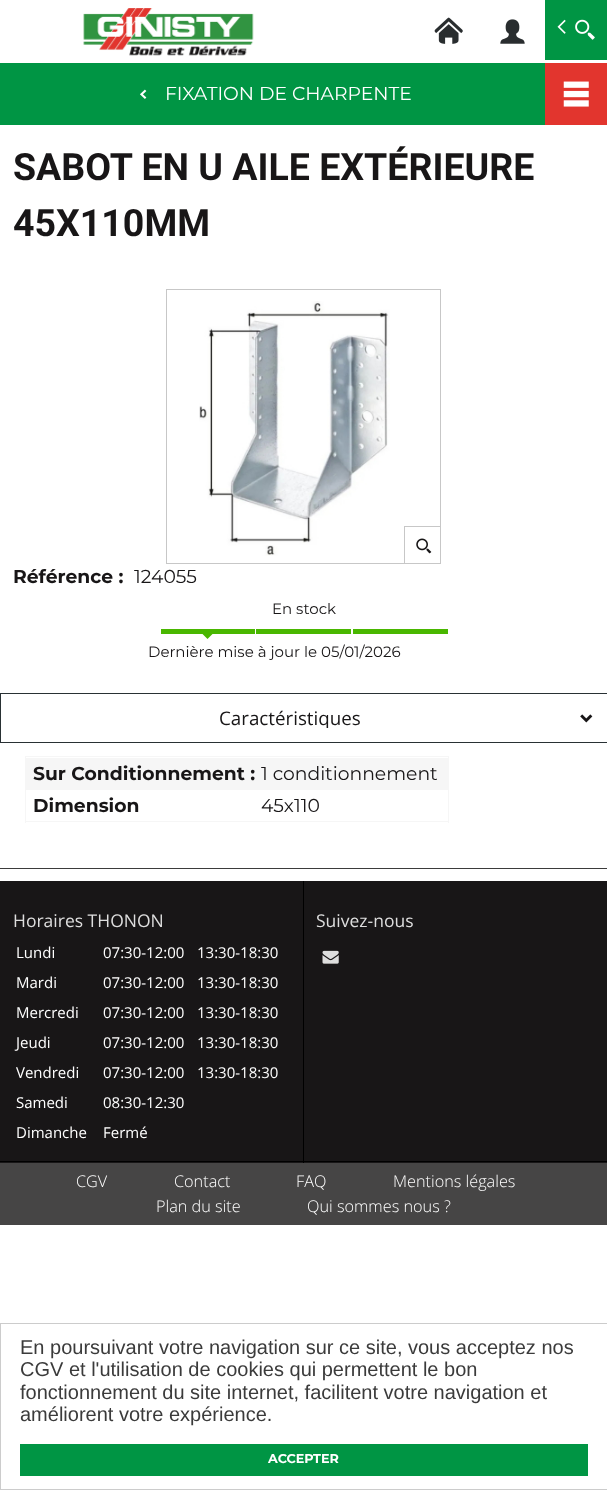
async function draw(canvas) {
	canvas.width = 607;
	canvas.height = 1490;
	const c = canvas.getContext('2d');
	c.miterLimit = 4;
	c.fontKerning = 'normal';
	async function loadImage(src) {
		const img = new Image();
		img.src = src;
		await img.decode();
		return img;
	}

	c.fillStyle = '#fff';
	c.fillRect(0, 0, 607, 1490);
	c.drawImage(await loadImage('img1.png'), 83, 8, 171, 48);
	c.drawImage(await loadImage('img2.png'), 434, 17, 29, 27);
	c.drawImage(await loadImage('img3.png'), 500, 19, 25, 25);
	c.fillStyle = '#009544';
	c.fillRect(545, 0, 62, 60);
	c.drawImage(await loadImage('img4.png'), 557, 19, 38, 21);
	c.fillRect(0, 63, 545, 62);
	c.drawImage(await loadImage('img5.png'), 140, 89, 7, 10);
	c.font = '18.75px Montserrat';
	c.fillStyle = '#fff';
	c.fillText('FIXATION DE CHARPENTE', 165, 100);
	c.fillStyle = '#e2352e';
	c.fillRect(545, 63, 62, 62);
	c.drawImage(await loadImage('img6.png'), 563, 81, 26, 26);
	c.font = 'bold 37.5px Roboto';
	c.fillStyle = '#181617';
	c.fillText('SABOT EN U AILE EXTÉRIEURE', 13, 180);
	c.fillText('45X110MM', 13, 236);
	c.strokeStyle = '#c7c7c7';
	c.strokeRect(166.5, 289.5, 274, 274);
	c.drawImage(await loadImage('img7.png'), 199, 301, 191, 255);
	c.fillStyle = '#c7c7c7';
	c.fillRect(404, 526, 37, 1);
	c.fillRect(404, 526, 1, 38);
	c.drawImage(await loadImage('img8.png'), 416, 538, 16, 16);
	c.font = 'bold 18.75px Montserrat';
	c.fillStyle = '#181617';
	c.fillText('Référence :', 13, 583);
	c.font = '18.75px Montserrat';
	c.fillText('124055', 134, 583);
	c.font = '15px Montserrat';
	c.fillText('En stock', 272, 614);
	c.fillStyle = '#49b700';
	c.fillRect(161, 629, 94, 5);
	c.beginPath();
	c.moveTo(202.5, 634);
	c.lineTo(212.5, 634);
	c.lineTo(207.5, 639);
	c.closePath();
	c.fill();
	c.fillRect(256, 629, 95, 5);
	c.fillRect(353, 629, 95, 5);
	c.fillStyle = '#181617';
	c.fillText('Dernière mise à jour le 05/01/2026', 148, 657);
	c.strokeStyle = '#293134';
	c.strokeRect(0.5, 693.5, 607, 49);
	c.save();
	c.beginPath();
	c.rect(14, 709, 552, 19);
	c.clip();
	c.font = '18.75px Open Sans';
	c.fillText('Caractéristiques', 219, 725);
	c.restore();
	c.drawImage(await loadImage('img9.png'), 580, 714, 13, 9);
	for (const [x, y, w, h, color] of [
		[0, 868, 607, 1, '#3b3b3b'],
		[25, 756, 424, 1, '#f6f6f6'],
		[448, 756, 1, 67, '#f6f6f6'],
		[25, 821, 424, 1, '#f6f6f6'],
		[25, 756, 1, 67, '#f6f6f6'],
		[26, 758, 422, 32, '#f6f6f6'],
	]) {
		c.fillStyle = color;
		c.fillRect(x, y, w, h);
	}
	c.font = 'bold 18.75px Montserrat';
	c.fillStyle = '#181617';
	c.fillText('Sur Conditionnement :', 33, 780);
	c.font = '18.75px Montserrat';
	c.fillText('1 conditionnement', 261, 780);
	c.font = 'bold 18.75px Montserrat';
	c.fillText('Dimension', 33, 812);
	c.font = '18.75px Montserrat';
	c.fillText('45x110', 261, 812);
	for (const [x, y, w, h, color] of [
		[0, 881, 607, 282, '#181617'],
		[303, 881, 1, 282, '#000'],
		[0, 1161, 607, 1, '#000'],
	]) {
		c.fillStyle = color;
		c.fillRect(x, y, w, h);
	}
	c.font = '17.5px Open Sans';
	c.fillStyle = '#dedede';
	c.fillText('Horaires THONON', 13, 927);
	c.font = '15px Open Sans';
	c.fillStyle = '#fff';
	for (const [text, x, y] of [
		['Lundi', 16, 958],
		['07:30-12:00', 103, 958],
		['13:30-18:30', 197, 958],
		['Mardi', 16, 988],
		['07:30-12:00', 103, 988],
		['13:30-18:30', 197, 988],
		['Mercredi', 16, 1018],
		['07:30-12:00', 103, 1018],
		['13:30-18:30', 197, 1018],
		['Jeudi', 16, 1048],
		['07:30-12:00', 103, 1048],
		['13:30-18:30', 197, 1048],
		['Vendredi', 16, 1078],
		['07:30-12:00', 103, 1078],
		['13:30-18:30', 197, 1078],
		['Samedi', 16, 1108],
		['08:30-12:30', 103, 1108],
		['Dimanche', 16, 1138],
		['Fermé', 103, 1138],
	]) {
		c.fillText(text, x, y);
	}
	c.font = '17.5px Open Sans';
	c.fillStyle = '#dedede';
	c.fillText('Suivez-nous', 316, 927);
	c.drawImage(await loadImage('img10.png'), 322, 950, 17, 14);
	c.fillStyle = '#464545';
	c.fillRect(0, 1163, 607, 62);
	c.font = '300 16.25px Open Sans';
	c.fillStyle = '#fff';
	for (const [text, x, y] of [
		['CGV', 76, 1187],
		['Contact', 174, 1187],
		['FAQ', 296, 1187],
		['Mentions légales', 393, 1187],
		['Plan du site', 156, 1212],
		['Qui sommes nous ?', 307, 1212],
	]) {
		c.fillText(text, x, y);
	}
	c.strokeStyle = '#ccc';
	c.strokeRect(0.5, 1323.5, 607, 166);
	c.font = '20px Liberation Sans';
	c.fillStyle = '#3b3b3b';
	for (const [text, x, y] of [
		['En poursuivant votre navigation sur ce site, vous acceptez nos', 20, 1354],
		['CGV et l\'utilisation de cookies qui permettent le bon', 20, 1376],
		['fonctionnement du site internet, facilitent votre navigation et', 20, 1399],
		['améliorent votre expérience.', 20, 1421],
	]) {
		c.fillText(text, x, y);
	}
	c.fillStyle = '#009544';
	c.fillRect(20, 1444, 568, 32);
	c.font = 'bold 12.75px Montserrat';
	c.fillStyle = '#fff';
	c.fillText('ACCEPTER', 268, 1463);
}

draw(document.querySelector('canvas'));
